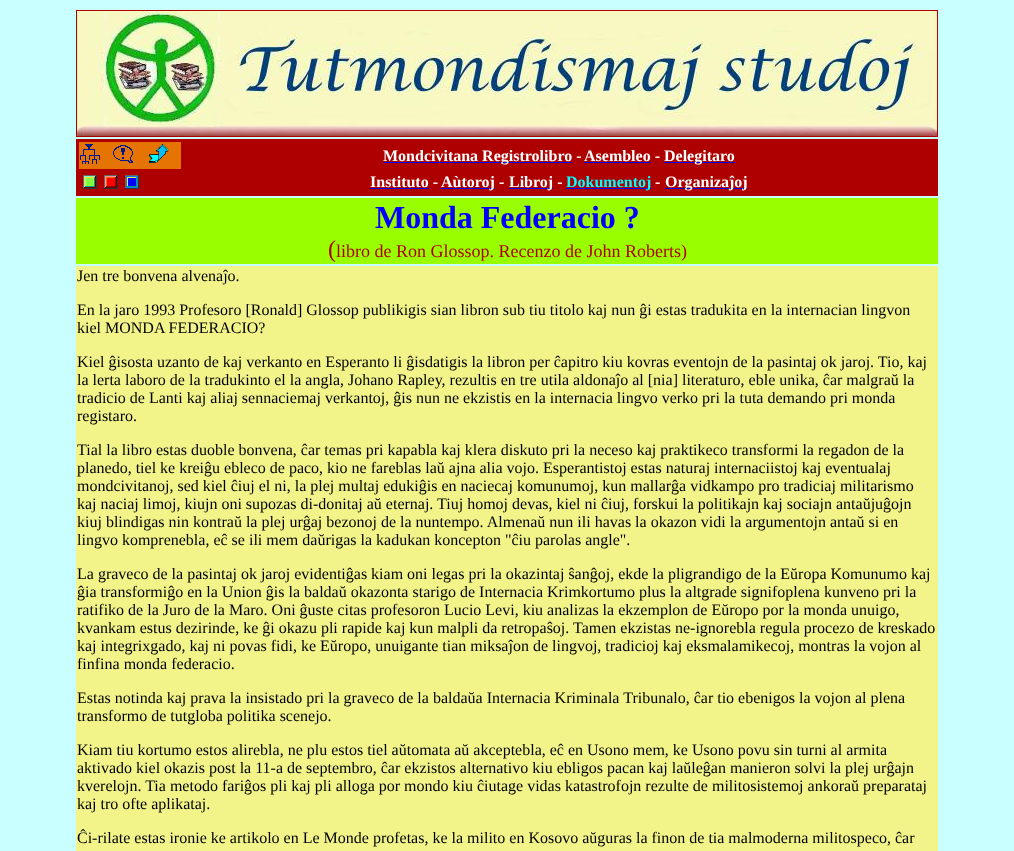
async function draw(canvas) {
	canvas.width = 1014;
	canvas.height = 851;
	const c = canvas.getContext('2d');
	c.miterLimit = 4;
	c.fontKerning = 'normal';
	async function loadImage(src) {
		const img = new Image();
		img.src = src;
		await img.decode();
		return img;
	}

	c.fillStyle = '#caffff';
	c.fillRect(0, 0, 1014, 851);
	c.fillStyle = '#af0000';
	c.fillRect(76, 10, 862, 127);
	c.drawImage(await loadImage('img1.png'), 77, 11, 860, 125);
	c.fillRect(76, 139, 862, 57);
	c.fillStyle = '#e67402';
	c.fillRect(79, 142, 102, 27);
	c.drawImage(await loadImage('img2.png'), 80, 144, 20, 20);
	c.drawImage(await loadImage('img3.png'), 113, 145, 20, 18);
	c.drawImage(await loadImage('img4.png'), 148, 144, 21, 19);
	c.fillStyle = '#00e';
	c.fillRect(383, 162, 189, 1);
	c.font = 'bold 16px Liberation Serif';
	c.fillStyle = '#fff';
	c.fillText('Mondcivitana Registrolibro -', 383, 161);
	c.fillText('Asembleo -', 584, 161);
	c.fillStyle = '#00e';
	c.fillRect(584, 162, 67, 1);
	c.fillRect(664, 162, 71, 1);
	c.fillStyle = '#fff';
	c.fillText('Delegitaro', 664, 161);
	c.drawImage(await loadImage('img5.png'), 83, 175, 14, 14);
	c.drawImage(await loadImage('img6.png'), 104, 175, 14, 14);
	c.drawImage(await loadImage('img7.png'), 125, 175, 14, 14);
	c.fillText('Instituto -', 370, 187);
	c.fillStyle = '#00e';
	c.fillRect(370, 188, 59, 1);
	c.fillRect(441, 188, 54, 1);
	c.fillStyle = '#fff';
	c.fillText('Aùtoroj -', 441, 187);
	c.fillStyle = '#00e';
	c.fillRect(509, 188, 44, 1);
	c.fillStyle = '#fff';
	c.fillText('Libroj -', 509, 187);
	c.fillStyle = '#00e';
	c.fillRect(566, 188, 85, 1);
	c.fillStyle = '#0ff';
	c.fillText('Dokumentoj', 566, 187);
	c.fillStyle = '#fff';
	c.fillText('-', 655, 187);
	c.fillStyle = '#00e';
	c.fillRect(665, 188, 82, 1);
	c.fillStyle = '#fff';
	c.fillText('Organizaĵoj', 665, 187);
	c.fillStyle = '#9f0';
	c.fillRect(76, 198, 862, 66);
	c.font = 'bold 32px Liberation Serif';
	c.fillStyle = '#00f';
	c.fillText('Monda Federacio ?', 375, 228);
	c.font = '24px Liberation Serif';
	c.fillStyle = '#af0000';
	c.fillText('(', 328, 257);
	c.font = '18px Liberation Serif';
	c.fillText('libro de Ron Glossop. Recenzo de John Roberts)', 336, 257);
	c.fillStyle = '#f2f48a';
	c.fillRect(76, 266, 862, 585);
	c.font = '16px Liberation Serif';
	c.fillStyle = '#000';
	for (const [text, x, y] of [
		['Jen tre bonvena alvenaĵo.', 77, 281],
		['En la jaro 1993 Profesoro [Ronald] Glossop publikigis sian libron sub tiu titolo kaj nun ĝi estas tradukita en la internacian lingvon', 77, 315],
		['kiel MONDA FEDERACIO?', 77, 333],
		['Kiel ĝisosta uzanto de kaj verkanto en Esperanto li ĝisdatigis la libron per ĉapitro kiu kovras eventojn de la pasintaj ok jaroj. Tio, kaj', 77, 367],
		['la lerta laboro de la tradukinto el la angla, Johano Rapley, rezultis en tre utila aldonaĵo al [nia] literaturo, eble unika, ĉar malgraŭ la', 77, 385],
		['tradicio de Lanti kaj aliaj sennaciemaj verkantoj, ĝis nun ne ekzistis en la internacia lingvo verko pri la tuta demando pri monda', 77, 403],
		['registaro.', 77, 421],
		['Tial la libro estas duoble bonvena, ĉar temas pri kapabla kaj klera diskuto pri la neceso kaj praktikeco transformi la regadon de la', 77, 455],
		['planedo, tiel ke kreiĝu ebleco de paco, kio ne fareblas laŭ ajna alia vojo. Esperantistoj estas naturaj internaciistoj kaj eventualaj', 77, 473],
		['mondcivitanoj, sed kiel ĉiuj el ni, la plej multaj edukiĝis en naciecaj komunumoj, kun mallarĝa vidkampo pro tradiciaj militarismo', 77, 491],
		['kaj naciaj limoj, kiujn oni supozas di-donitaj aŭ eternaj. Tiuj homoj devas, kiel ni ĉiuj, forskui la politikajn kaj sociajn antaŭjuĝojn', 77, 509],
		['kiuj blindigas nin kontraŭ la plej urĝaj bezonoj de la nuntempo. Almenaŭ nun ili havas la okazon vidi la argumentojn antaŭ si en', 77, 527],
		['lingvo komprenebla, eĉ se ili mem daŭrigas la kadukan koncepton "ĉiu parolas angle".', 77, 545],
		['La graveco de la pasintaj ok jaroj evidentiĝas kiam oni legas pri la okazintaj ŝanĝoj, ekde la pligrandigo de la Eŭropa Komunumo kaj', 77, 579],
		['ĝia transformiĝo en la Union ĝis la baldaŭ okazonta starigo de Internacia Krimkortumo plus la altgrade signifoplena kunveno pri la', 77, 597],
		['ratifiko de la Juro de la Maro. Oni ĝuste citas profesoron Lucio Levi, kiu analizas la ekzemplon de Eŭropo por la monda unuigo,', 77, 615],
		['kvankam estus dezirinde, ke ĝi okazu pli rapide kaj kun malpli da retropaŝoj. Tamen ekzistas ne-ignorebla regula procezo de kreskado', 77, 633],
		['kaj integrixgado, kaj ni povas fidi, ke Eŭropo, unuigante tian miksaĵon de lingvoj, tradicioj kaj eksmalamikecoj, montras la vojon al', 77, 651],
		['finfina monda federacio.', 77, 669],
		['Estas notinda kaj prava la insistado pri la graveco de la baldaŭa Internacia Kriminala Tribunalo, ĉar tio ebenigos la vojon al plena', 77, 703],
		['transformo de tutgloba politika scenejo.', 77, 721],
		['Kiam tiu kortumo estos alirebla, ne plu estos tiel aŭtomata aŭ akceptebla, eĉ en Usono mem, ke Usono povu sin turni al armita', 77, 755],
		['aktivado kiel okazis post la 11-a de septembro, ĉar ekzistos alternativo kiu ebligos pacan kaj laŭleĝan manieron solvi la plej urĝajn', 77, 773],
		['kverelojn. Tia metodo fariĝos pli kaj pli alloga por mondo kiu ĉiutage vidas katastrofojn rezulte de militosistemoj ankoraŭ preparataj', 77, 791],
		['kaj tro ofte aplikataj.', 77, 809],
		['Ĉi-rilate estas ironie ke artikolo en Le Monde profetas, ke la milito en Kosovo aŭguras la finon de tia malmoderna militospeco, ĉar', 77, 843],
	]) {
		c.fillText(text, x, y);
	}
}

draw(document.querySelector('canvas'));
